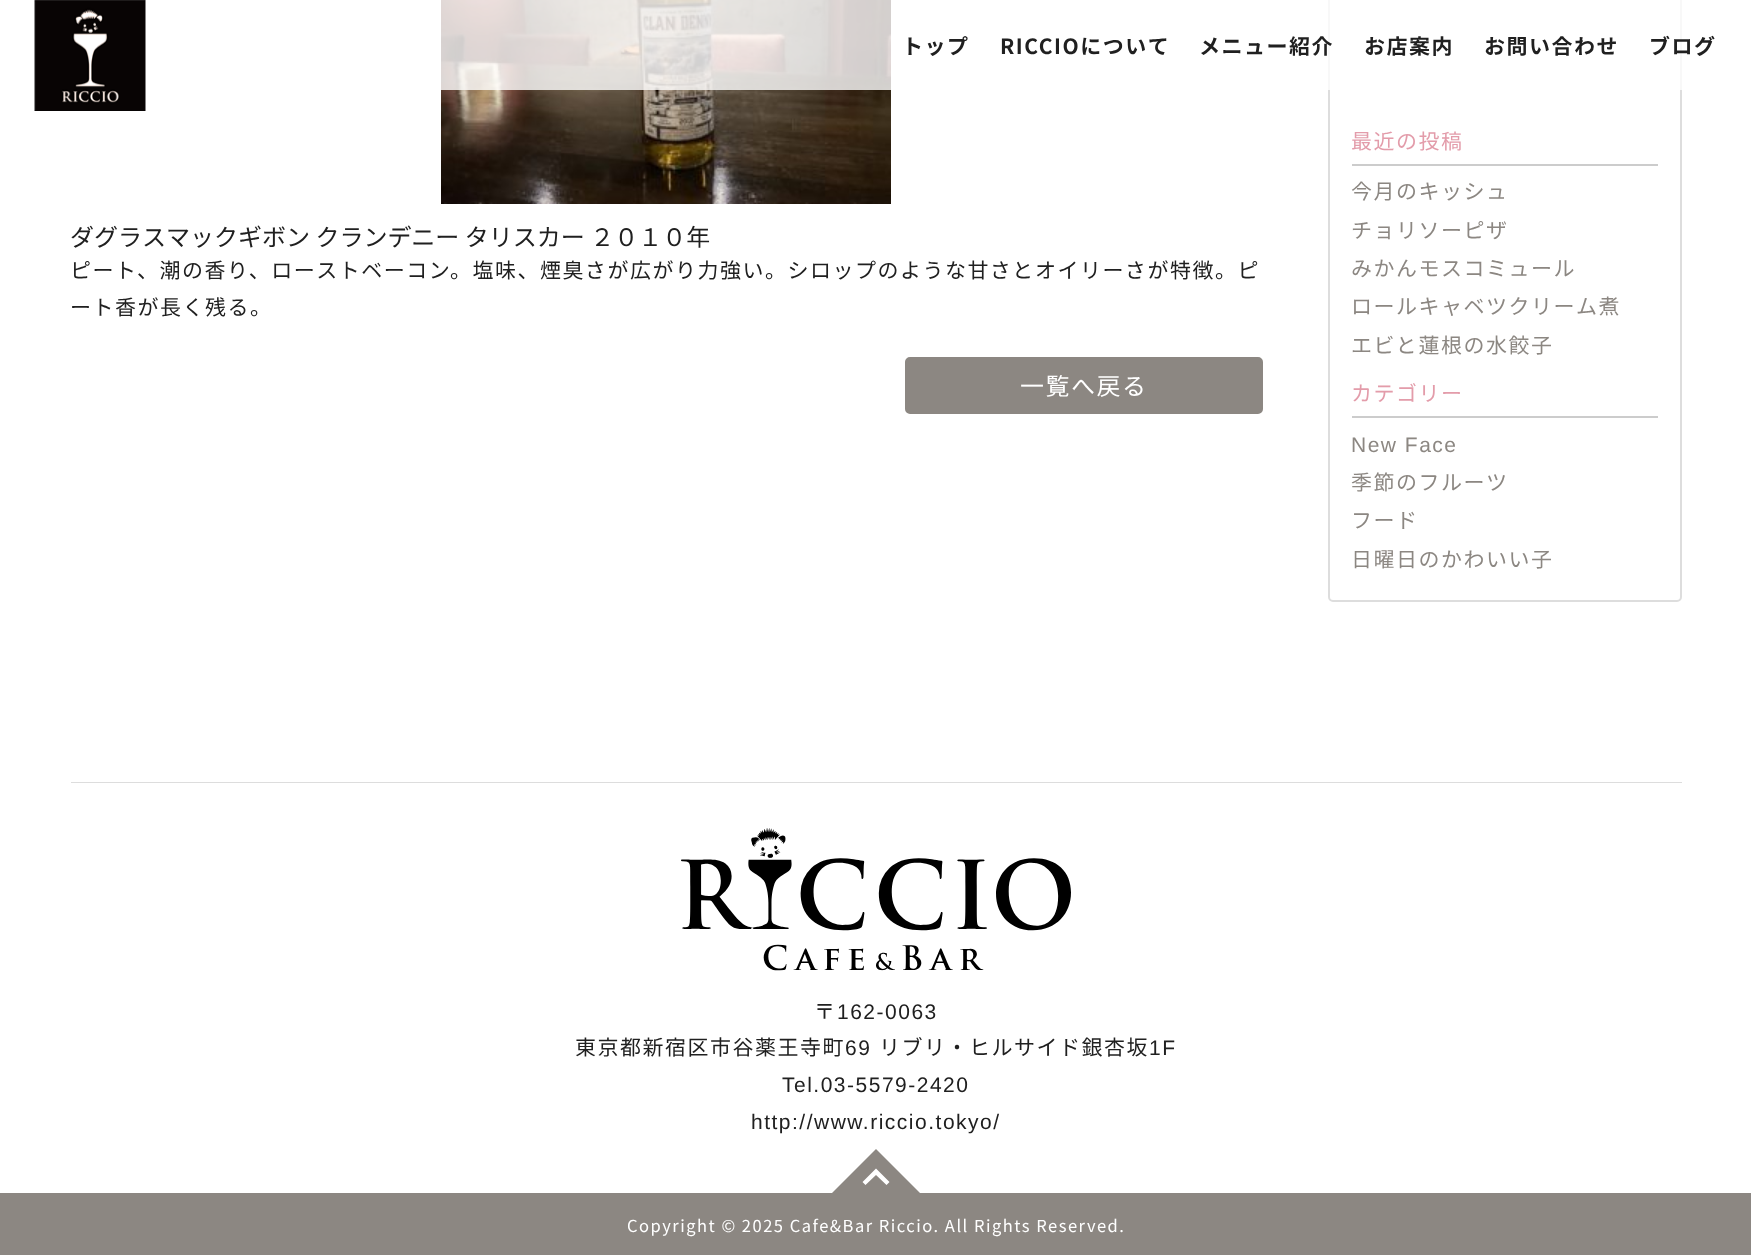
async function draw(canvas) {
	canvas.width = 1751;
	canvas.height = 1255;
	const c = canvas.getContext('2d');
	c.miterLimit = 4;
	c.fontKerning = 'normal';
	async function loadImage(src) {
		const img = new Image();
		img.src = src;
		await img.decode();
		return img;
	}

	c.fillStyle = '#fff';
	c.fillRect(0, 0, 1751, 1255);
	c.drawImage(await loadImage('img2.png'), 441, 0, 450, 204);
	c.beginPath();
	c.roundRect(1329, -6, 352, 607, 4);
	c.strokeStyle = '#ddd';
	c.lineWidth = 2;
	c.stroke();
	c.fillStyle = '#ffffffcc';
	c.fillRect(441, 0, 1241, 90);
	c.drawImage(await loadImage('img1.png'), 34, 0, 112, 111);
	c.letterSpacing = '1.5px';
	c.font = 'bold 21px Noto Sans JP';
	c.fillStyle = '#202020';
	for (const [text, x, y] of [
		['トップ', 902, 54],
		['RICCIOについて', 1000, 54],
		['メニュー紹介', 1199, 54],
		['お店案内', 1364, 54],
		['お問い合わせ', 1484, 54],
		['ブログ', 1649, 54],
	]) {
		c.fillText(text, x, y);
	}
	c.letterSpacing = '0px';
	c.font = '24px Noto Sans JP';
	c.fillText('ダグラスマックギボン クランデニー タリスカー ２０１０年', 70, 246);
	c.letterSpacing = '1.5px';
	c.font = '21px Noto Sans JP';
	c.fillText('ピート、潮の香り、ローストベーコン。塩味、煙臭さが広がり力強い。シロップのような甘さとオイリーさが特徴。ピ', 70, 278);
	c.fillText('ート香が長く残る。', 70, 315);
	c.fillStyle = '#8c8782';
	c.beginPath();
	c.roundRect(906, 358, 356, 55, 4);
	c.fill();
	c.strokeStyle = '#8c8782';
	c.stroke();
	c.font = '24px Noto Sans JP';
	c.fillStyle = '#fff';
	c.fillText('一覧へ戻る', 1020, 395);
	c.fillStyle = '#ccc';
	c.fillRect(1352, 164, 306, 2);
	c.font = '21px Noto Sans JP';
	c.fillStyle = '#e39caa';
	c.fillText('最近の投稿', 1351, 149);
	c.fillStyle = '#8c8782';
	for (const [text, x, y] of [
		['今月のキッシュ', 1351, 199],
		['チョリソーピザ', 1351, 238],
		['みかんモスコミュール', 1351, 276],
		['ロールキャベツクリーム煮', 1351, 314],
		['エビと蓮根の水餃子', 1351, 353],
	]) {
		c.fillText(text, x, y);
	}
	c.fillStyle = '#ccc';
	c.fillRect(1352, 416, 306, 2);
	c.fillStyle = '#e39caa';
	c.fillText('カテゴリー', 1351, 401);
	c.font = '21px Liberation Sans';
	c.fillStyle = '#8c8782';
	c.fillText('New Face', 1351, 452);
	c.font = '21px Noto Sans JP';
	for (const [text, x, y] of [
		['季節のフルーツ', 1351, 490],
		['フード', 1351, 528],
		['日曜日のかわいい子', 1351, 567],
	]) {
		c.fillText(text, x, y);
	}
	c.fillStyle = '#ddd';
	c.fillRect(71, 782, 1611, 1);
	c.drawImage(await loadImage('img3.png'), 681, 828, 390, 143);
	c.fillStyle = '#202020';
	c.fillText('〒', 814, 1019);
	c.font = '21px Liberation Sans';
	c.fillText('162-0063', 837, 1019);
	c.font = '21px Noto Sans JP';
	c.fillText('東京都新宿区市谷薬王寺町', 575, 1055);
	c.font = '21px Liberation Sans';
	c.fillText('69', 845, 1055);
	c.font = '21px Noto Sans JP';
	c.fillText('リブリ・ヒルサイド銀杏坂', 879, 1055);
	c.font = '21px Liberation Sans';
	for (const [text, x, y] of [
		['1F', 1149, 1055],
		['Tel.03-5579-2420', 782, 1092],
		['http://www.riccio.tokyo/', 751, 1129],
	]) {
		c.fillText(text, x, y);
	}
	c.save();
	c.beginPath();
	c.rect(831, 1104, 90, 89);
	c.clip();
	c.fillStyle = '#8c8782';
	c.beginPath();
	c.moveTo(921, 1194);
	c.lineTo(831, 1194);
	c.lineTo(876, 1149);
	c.closePath();
	c.fill();
	c.restore();
	c.fillStyle = '#fff';
	c.beginPath();
	c.moveTo(865.5, 1185);
	c.lineTo(862.5, 1182);
	c.lineTo(876, 1168.5);
	c.lineTo(889.5, 1182);
	c.lineTo(886.5, 1185);
	c.lineTo(876, 1175);
	c.closePath();
	c.fill();
	c.fillStyle = '#8c8782';
	c.fillRect(0, 1193, 1751, 62);
	c.font = '16.5px Noto Sans JP';
	c.fillStyle = '#fff';
	c.fillText('Copyright © 2025 Cafe&Bar Riccio. All Rights Reserved.', 627, 1232);
}

draw(document.querySelector('canvas'));
